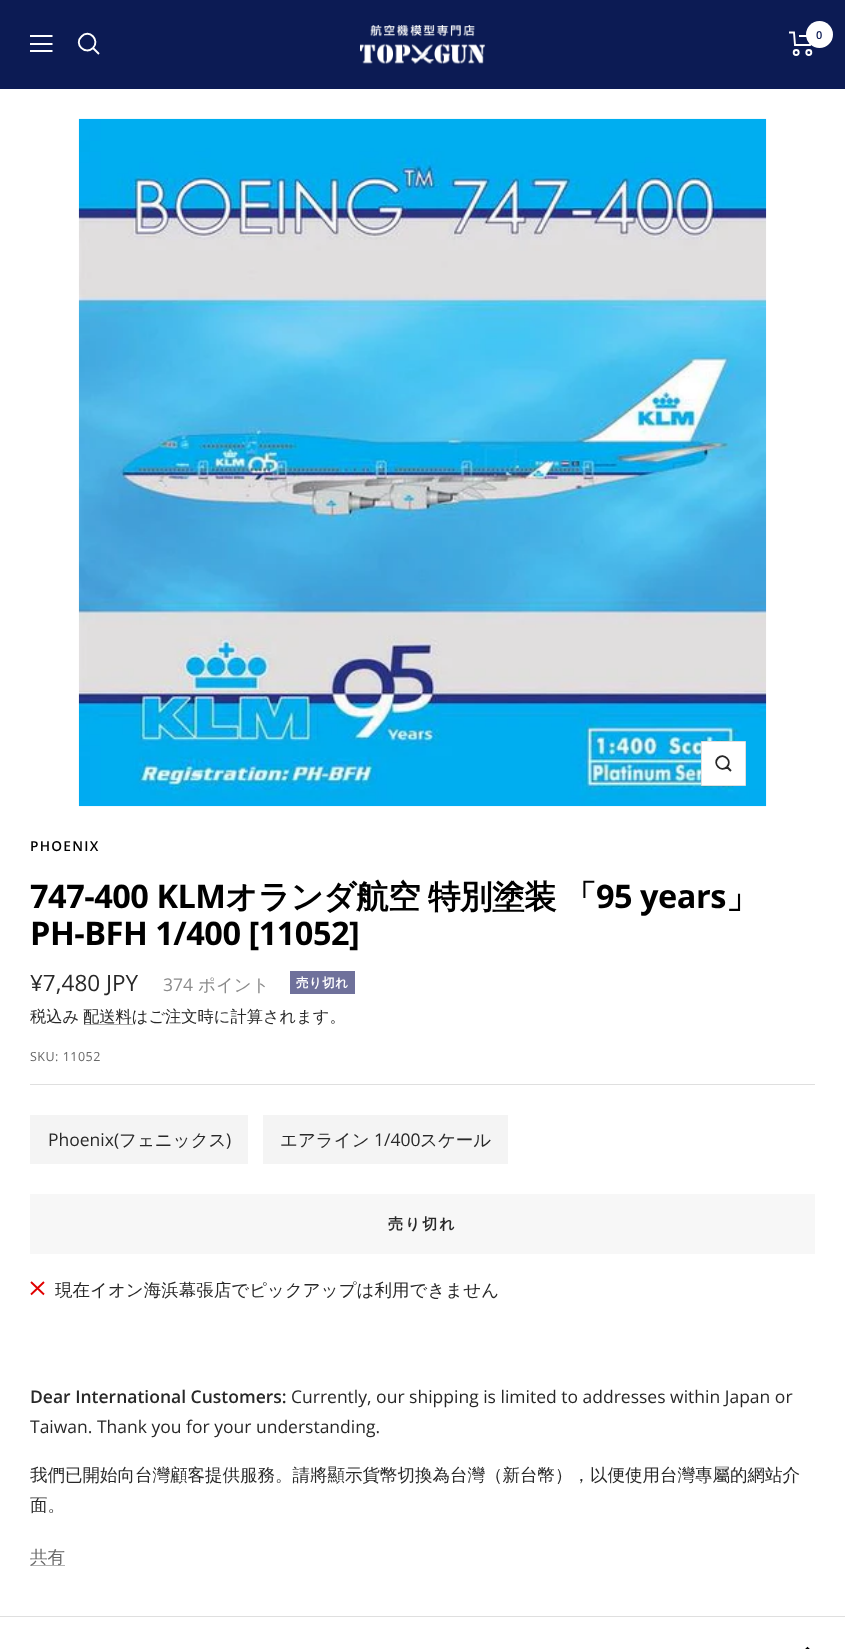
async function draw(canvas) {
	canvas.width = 845;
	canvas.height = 1649;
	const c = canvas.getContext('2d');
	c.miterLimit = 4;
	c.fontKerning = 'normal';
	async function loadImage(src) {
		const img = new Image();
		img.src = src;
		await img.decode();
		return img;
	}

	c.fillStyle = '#fff';
	c.fillRect(0, 0, 845, 1649);
	c.fillStyle = '#0c1b54';
	c.fillRect(0, 0, 845, 89);
	c.beginPath();
	c.moveTo(30, 36);
	c.lineTo(52.5, 36);
	c.moveTo(30, 51);
	c.lineTo(52.5, 51);
	c.closePath();
	c.moveTo(30, 44);
	c.lineTo(52.5, 44);
	c.closePath();
	c.strokeStyle = '#fff';
	c.lineWidth = 1.9;
	c.stroke();
	c.beginPath();
	c.moveTo(93, 48);
	c.bezierCurveTo(100.5, 40, 89, 28.5, 81.5, 36.5);
	c.bezierCurveTo(73.5, 44, 85, 55.5, 93, 48);
	c.closePath();
	c.moveTo(93, 48);
	c.lineTo(99, 54);
	c.stroke();
	c.drawImage(await loadImage('img1.png'), 360, 25, 125, 39);
	c.beginPath();
	c.moveTo(789, 32.5);
	c.lineTo(794, 32.5);
	c.lineTo(795, 45);
	c.lineTo(810, 45);
	c.lineTo(812.5, 36);
	c.lineTo(799, 36);
	c.stroke();
	c.beginPath();
	c.arc(796.2, 52.5, 2.5, 0, 2 * Math.PI);
	c.stroke();
	c.beginPath();
	c.arc(808.8, 52.5, 2.5, 0, 2 * Math.PI);
	c.stroke();
	c.fillStyle = '#fff';
	c.beginPath();
	c.arc(819.5, 34.5, 13.5, 0, 2 * Math.PI);
	c.fill();
	c.font = '600 11px Open Sans';
	c.fillStyle = '#0c1b54';
	c.fillText('0', 816, 39);
	c.drawImage(await loadImage('img2.png'), 78, 118, 689, 689);
	c.fillStyle = '#fff';
	c.beginPath();
	c.rect(701.5, 741.5, 44, 44);
	c.fill();
	c.strokeStyle = '#dfdfdf';
	c.lineWidth = 1;
	c.stroke();
	c.beginPath();
	c.moveTo(727, 767);
	c.bezierCurveTo(732.5, 761, 724, 752.5, 718, 758);
	c.bezierCurveTo(712.5, 764, 721, 772.5, 727, 767);
	c.closePath();
	c.moveTo(727, 767);
	c.lineTo(731, 771);
	c.strokeStyle = '#282828';
	c.lineWidth = 1.9;
	c.stroke();
	c.fillStyle = '#dfdfdf';
	c.fillRect(30, 1084, 785, 1);
	c.letterSpacing = '1.25px';
	c.font = '600 13.75px Open Sans';
	c.fillStyle = '#000';
	c.fillText('PHOENIX', 30, 851);
	c.letterSpacing = '-0.5px';
	c.font = 'bold 32.5px Open Sans';
	c.fillText('747-400 KLM', 30, 908);
	c.font = 'bold 32.5px WenQuanYi Zen Hei';
	for (const [text, x, y] of [
		['オランダ航空', 225, 908],
		['特別塗装', 428, 908],
		['「', 564, 908],
	]) {
		c.fillText(text, x, y);
	}
	c.font = 'bold 32.5px Open Sans';
	c.fillText('95 years', 596, 908);
	c.font = 'bold 32.5px WenQuanYi Zen Hei';
	c.fillText('」', 726, 908);
	c.font = 'bold 32.5px Open Sans';
	c.fillText('PH-BFH 1/400 [11052]', 30, 945);
	c.letterSpacing = '0px';
	c.font = '22.5px Open Sans';
	c.fillStyle = '#282828';
	c.fillText('¥7,480 JPY', 30, 991);
	c.font = '17.5px Open Sans';
	c.fillStyle = '#8c8c8c';
	c.fillText('374', 163, 991);
	c.font = '500 17.5px WenQuanYi Zen Hei';
	c.fillText('ポイント', 198, 991);
	c.fillStyle = '#6f719b';
	c.fillRect(290, 971, 65, 23);
	c.letterSpacing = '0.5px';
	c.font = 'bold 12.5px WenQuanYi Zen Hei';
	c.fillStyle = '#fff';
	c.fillText('売り切れ', 296, 987);
	c.letterSpacing = '0px';
	c.font = '500 16.25px WenQuanYi Zen Hei';
	c.fillStyle = '#282828';
	c.fillText('税込み', 30, 1022);
	c.fillStyle = '#b4b4b4';
	c.fillRect(84, 1024, 49, 1);
	c.fillStyle = '#282828';
	c.fillText('配送料はご注文時に計算されます。', 83, 1022);
	c.letterSpacing = '0.5px';
	c.font = '12.5px Open Sans';
	c.fillStyle = '#686868';
	c.fillText('SKU: 11052', 30, 1061);
	c.fillStyle = '#f4f4f4';
	c.fillRect(30, 1115, 218, 49);
	c.letterSpacing = '0px';
	c.font = '17.5px Open Sans';
	c.fillStyle = '#282828';
	c.fillText('Phoenix(', 48, 1146);
	c.font = '500 17.5px WenQuanYi Zen Hei';
	c.fillText('フェニックス', 119, 1146);
	c.font = '17.5px Open Sans';
	c.fillText(')', 226, 1146);
	c.fillStyle = '#f4f4f4';
	c.fillRect(263, 1115, 245, 49);
	c.font = '500 17.5px WenQuanYi Zen Hei';
	c.fillStyle = '#282828';
	c.fillText('エアライン', 280, 1146);
	c.font = '17.5px Open Sans';
	c.fillText('1/400', 374, 1146);
	c.font = '500 17.5px WenQuanYi Zen Hei';
	c.fillText('スケール', 420, 1146);
	c.fillStyle = '#f7f7f7';
	c.fillRect(30, 1194, 785, 60);
	c.letterSpacing = '2px';
	c.font = 'bold 15px WenQuanYi Zen Hei';
	c.fillStyle = '#282828';
	c.fillText('売り切れ', 388, 1229);
	c.beginPath();
	c.moveTo(31, 1282);
	c.lineTo(44, 1294.5);
	c.moveTo(31, 1294.5);
	c.lineTo(44, 1282);
	c.strokeStyle = '#e00000';
	c.stroke();
	c.letterSpacing = '0px';
	c.font = '500 17.5px WenQuanYi Zen Hei';
	c.fillText('現在イオン海浜幕張店でピックアップは利用できません', 55, 1296);
	c.font = '600 17.5px Open Sans';
	c.fillText('Dear International Customers:', 30, 1403);
	c.font = '17.5px Open Sans';
	c.fillText('Currently, our shipping is limited to addresses within Japan or', 291, 1403);
	c.fillText('Taiwan. Thank you for your understanding.', 30, 1433);
	c.font = '500 17.5px WenQuanYi Zen Hei';
	c.fillText('我們已開始向台灣顧客提供服務。請將顯示貨幣切換為台灣（新台幣），以便使用台灣專屬的網站介', 30, 1481);
	c.fillText('面。', 30, 1511);
	c.fillStyle = '#b4b4b4';
	c.fillRect(30, 1565, 35, 1);
	c.fillStyle = '#686868';
	c.fillText('共有', 30, 1563);
	c.fillStyle = '#dfdfdf';
	c.fillRect(0, 1616, 845, 1);
	c.beginPath();
	c.moveTo(814, 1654.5);
	c.lineTo(807.5, 1648);
	c.lineTo(801, 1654.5);
	c.strokeStyle = '#000';
	c.stroke();
}

draw(document.querySelector('canvas'));
